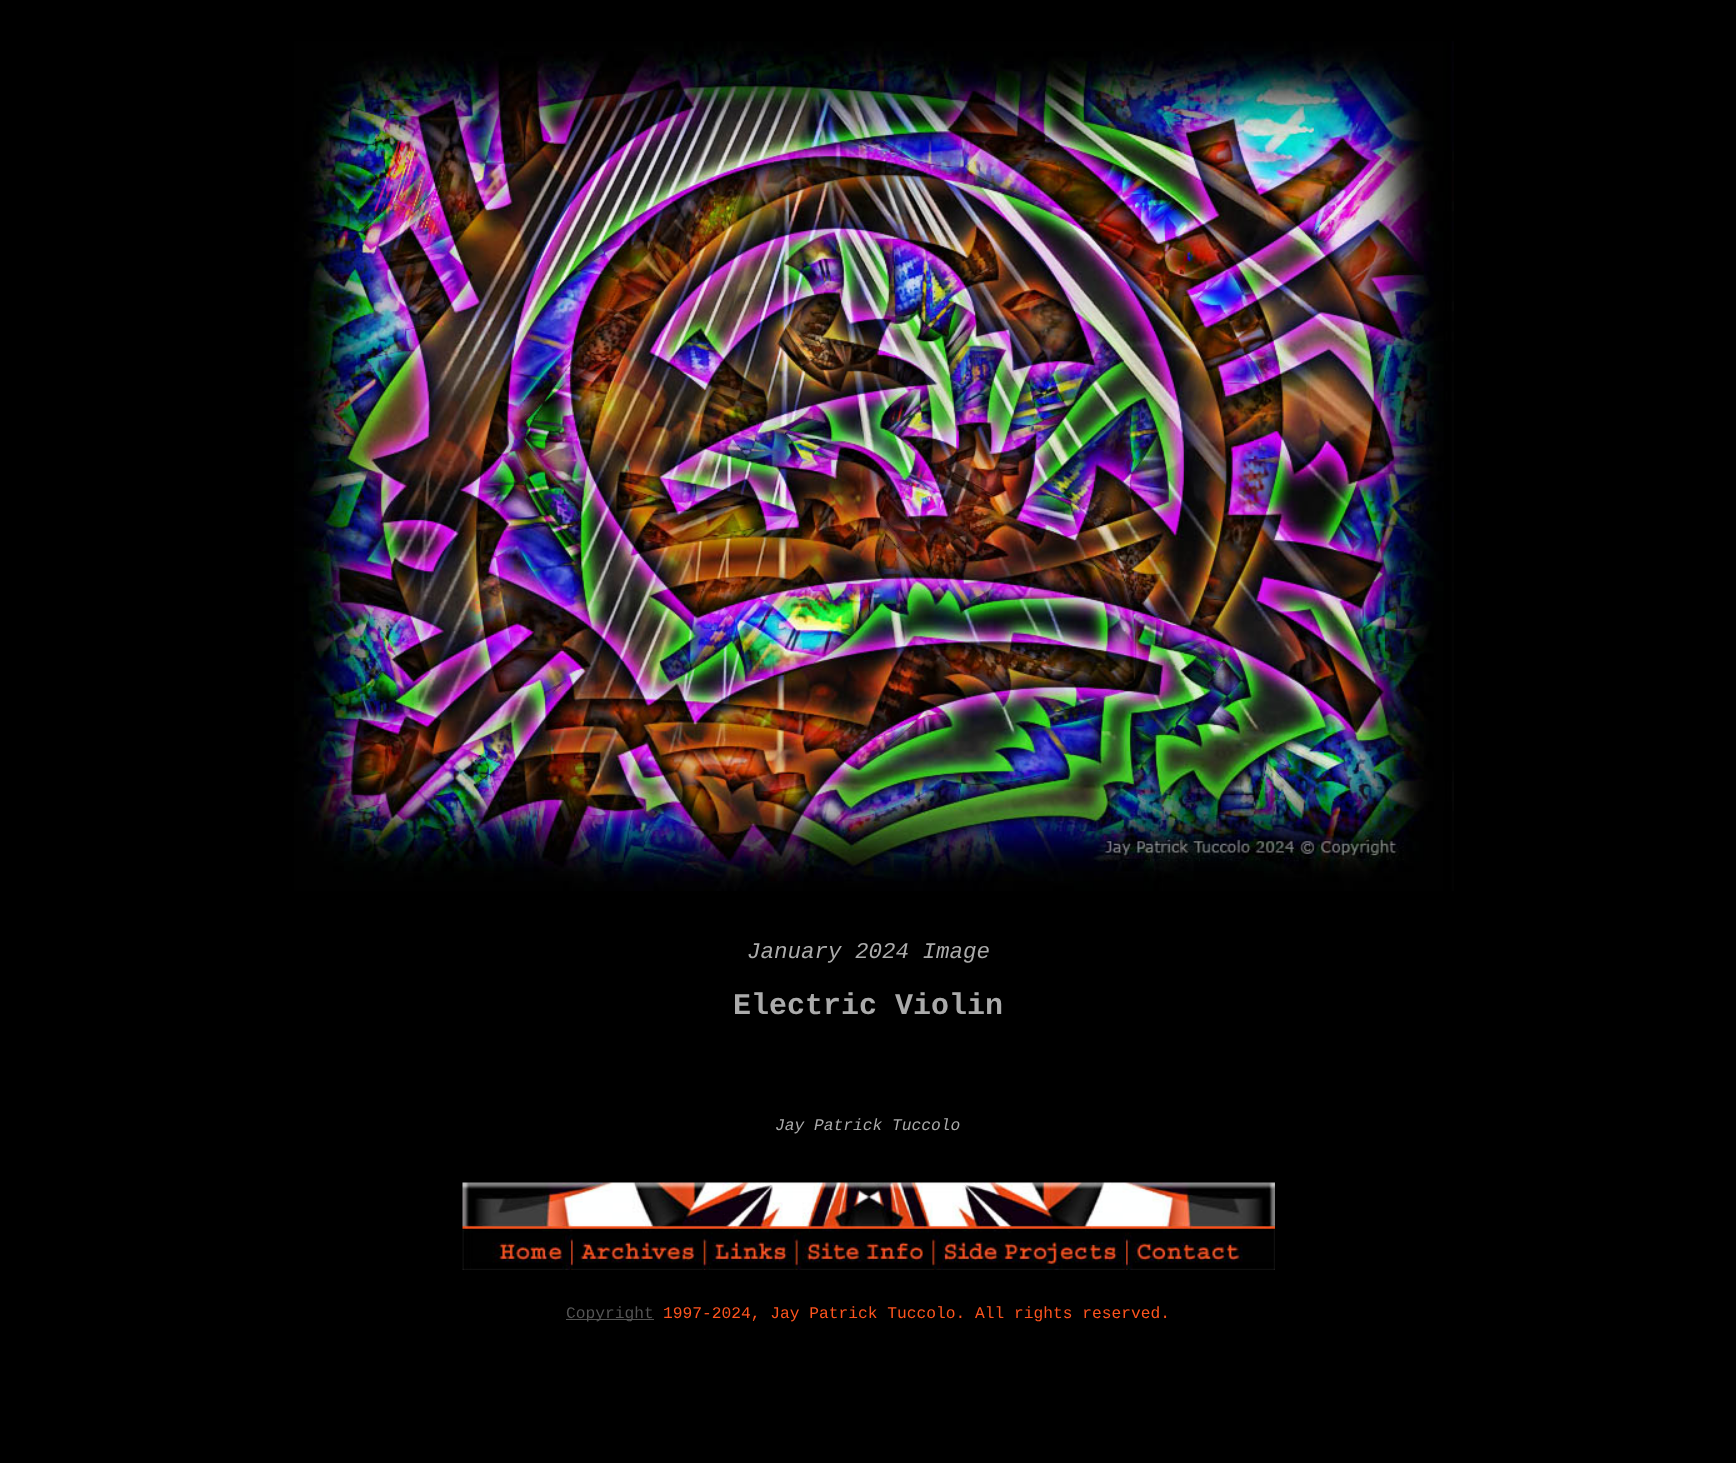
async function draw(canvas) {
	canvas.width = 1736;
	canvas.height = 1463;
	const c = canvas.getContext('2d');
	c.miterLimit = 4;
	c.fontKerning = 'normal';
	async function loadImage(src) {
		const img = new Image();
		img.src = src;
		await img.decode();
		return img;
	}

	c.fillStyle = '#000';
	c.fillRect(0, 0, 1736, 1463);
	c.drawImage(await loadImage('img1.png'), 294, 41, 1160, 850);
	c.font = 'italic 22.5px Liberation Mono';
	c.fillStyle = '#ababab';
	c.fillText('January 2024 Image', 747, 958);
	c.font = 'bold 30px Liberation Mono';
	c.fillText('Electric Violin', 733, 1014);
	c.font = 'italic 16.25px Liberation Mono';
	c.fillText('Jay Patrick Tuccolo', 775, 1130);
	c.drawImage(await loadImage('img2.png'), 462, 1182, 813, 88);
	c.fillStyle = '#545454';
	c.fillRect(566, 1319, 88, 1);
	c.font = '16.25px Liberation Mono';
	c.fillText('Copyright', 566, 1318);
	c.fillStyle = '#fe541e';
	c.fillText('1997-2024, Jay Patrick Tuccolo. All rights reserved.', 663, 1318);
}

draw(document.querySelector('canvas'));
